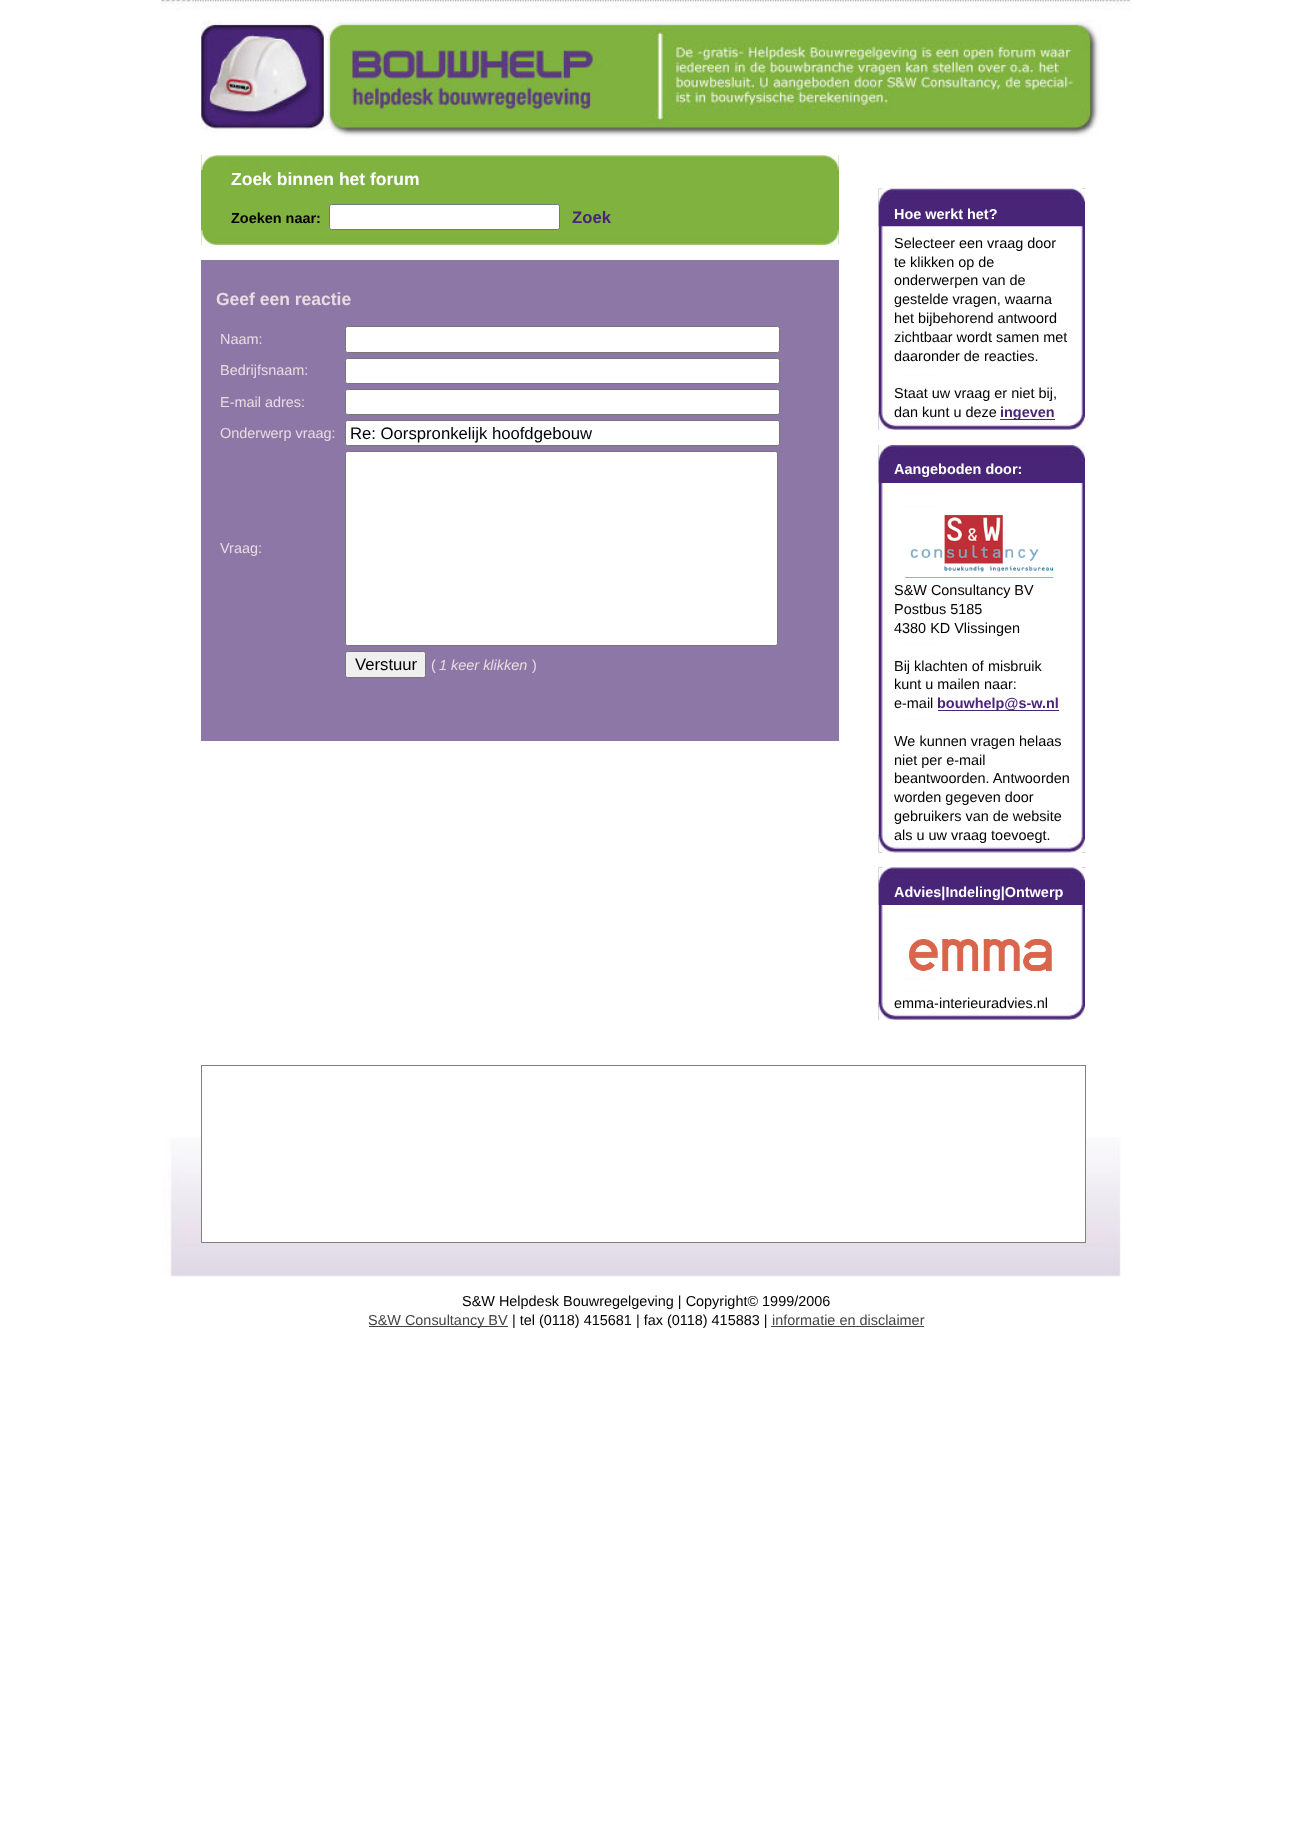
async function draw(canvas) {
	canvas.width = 1292;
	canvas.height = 1844;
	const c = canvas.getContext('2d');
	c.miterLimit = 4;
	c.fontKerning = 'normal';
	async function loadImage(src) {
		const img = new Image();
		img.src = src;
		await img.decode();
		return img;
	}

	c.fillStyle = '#fff';
	c.fillRect(0, 0, 1292, 1844);
	c.drawImage(await loadImage('img1.png'), 161, 0, 971, 137);
	c.drawImage(await loadImage('img2.png'), 163, 1137, 958, 140);
	c.fillStyle = '#80b23f';
	c.fillRect(201, 155, 638, 90);
	c.drawImage(await loadImage('img3.png'), 201, 155, 638, 15);
	c.font = 'bold 17.5px Liberation Sans';
	c.fillStyle = '#fff';
	c.fillText('Zoek binnen het forum', 231, 185);
	c.font = 'bold 14.45px Liberation Sans';
	c.fillStyle = '#000';
	c.fillText('Zoeken naar:', 231, 223);
	c.fillStyle = '#fff';
	c.beginPath();
	c.roundRect(329.5, 204.5, 230, 25, 2);
	c.fill();
	c.strokeStyle = '#767676';
	c.stroke();
	c.font = 'bold 16.7px Liberation Sans';
	c.fillStyle = '#482577';
	c.fillText('Zoek', 572, 223);
	c.drawImage(await loadImage('img4.png'), 201, 230, 638, 15);
	c.fillStyle = '#8d77a6';
	c.fillRect(201, 260, 638, 481);
	c.font = 'bold 17.5px Liberation Sans';
	c.fillStyle = '#e7dce2';
	c.fillText('Geef een reactie', 216, 305);
	c.font = '14.45px Liberation Sans';
	c.fillText('Naam:', 220, 344);
	c.fillStyle = '#fff';
	c.beginPath();
	c.roundRect(345.5, 326.5, 434, 26, 2);
	c.fill();
	c.stroke();
	c.fillStyle = '#e7dce2';
	c.fillText('Bedrijfsnaam:', 220, 375);
	c.fillStyle = '#fff';
	c.beginPath();
	c.roundRect(345.5, 358.5, 434, 25, 2);
	c.fill();
	c.stroke();
	c.fillStyle = '#e7dce2';
	c.fillText('E-mail adres:', 220, 407);
	c.fillStyle = '#fff';
	c.beginPath();
	c.roundRect(345.5, 389.5, 434, 25, 2);
	c.fill();
	c.stroke();
	c.fillStyle = '#e7dce2';
	c.fillText('Onderwerp vraag:', 220, 438);
	c.fillStyle = '#fff';
	c.beginPath();
	c.roundRect(345.5, 420.5, 434, 25, 2);
	c.fill();
	c.stroke();
	c.font = '16.7px Liberation Sans';
	c.fillStyle = '#000';
	c.fillText('Re: Oorspronkelijk hoofdgebouw', 350, 439);
	c.font = '14.45px Liberation Sans';
	c.fillStyle = '#e7dce2';
	c.fillText('Vraag:', 220, 553);
	c.fillStyle = '#fff';
	c.beginPath();
	c.roundRect(345.5, 451.5, 432, 194, 2);
	c.fill();
	c.stroke();
	c.fillStyle = '#efefef';
	c.beginPath();
	c.roundRect(345.5, 651.5, 80, 26, 2);
	c.fill();
	c.stroke();
	c.font = '16.7px Liberation Sans';
	c.fillStyle = '#000';
	c.fillText('Verstuur', 355, 670);
	c.font = '14.45px Liberation Sans';
	c.fillStyle = '#e7dce2';
	c.fillText('(', 431, 670);
	c.font = 'italic 14.45px Liberation Sans';
	c.fillText('1 keer klikken', 439, 670);
	c.font = '14.45px Liberation Sans';
	c.fillText(')', 532, 670);
	c.drawImage(await loadImage('img5.png'), 878, 188, 207, 242);
	c.drawImage(await loadImage('img6.png'), 878, 188, 207, 39);
	c.font = 'bold 14.45px Liberation Sans';
	c.fillStyle = '#fff';
	c.fillText('Hoe werkt het?', 894, 219);
	c.drawImage(await loadImage('img7.png'), 878, 412, 207, 18);
	c.font = '14.45px Liberation Sans';
	c.fillStyle = '#000';
	for (const [text, x, y] of [
		['Selecteer een vraag door', 894, 248],
		['te klikken op de', 894, 267],
		['onderwerpen van de', 894, 285],
		['gestelde vragen, waarna', 894, 304],
		['het bijbehorend antwoord', 894, 323],
		['zichtbaar wordt samen met', 894, 342],
		['daaronder de reacties.', 894, 361],
		['Staat uw vraag er niet bij,', 894, 398],
		['dan kunt u deze', 894, 417],
	]) {
		c.fillText(text, x, y);
	}
	c.fillStyle = '#482577';
	c.fillRect(1000, 419, 55, 1);
	c.font = 'bold 14.45px Liberation Sans';
	c.fillText('ingeven', 1000, 417);
	c.drawImage(await loadImage('img8.png'), 878, 445, 207, 408);
	c.fillStyle = '#4a2479';
	c.fillRect(879, 482, 206, 1);
	c.drawImage(await loadImage('img9.png'), 878, 445, 207, 38);
	c.fillStyle = '#fff';
	c.fillText('Aangeboden door:', 894, 474);
	c.drawImage(await loadImage('img10.png'), 878, 835, 207, 18);
	c.drawImage(await loadImage('img11.png'), 905, 515, 149, 63);
	c.font = '14.45px Liberation Sans';
	c.fillStyle = '#000';
	for (const [text, x, y] of [
		['S&W Consultancy BV', 894, 595],
		['Postbus 5185', 894, 614],
		['4380 KD Vlissingen', 894, 633],
		['Bij klachten of misbruik', 894, 671],
		['kunt u mailen naar:', 894, 689],
		['e-mail', 894, 708],
	]) {
		c.fillText(text, x, y);
	}
	c.fillStyle = '#482577';
	c.fillRect(938, 710, 121, 1);
	c.font = 'bold 14.45px Liberation Sans';
	c.fillText('bouwhelp@s-w.nl', 937, 708);
	c.font = '14.45px Liberation Sans';
	c.fillStyle = '#000';
	for (const [text, x, y] of [
		['We kunnen vragen helaas', 894, 746],
		['niet per e-mail', 894, 765],
		['beantwoorden. Antwoorden', 894, 783],
		['worden gegeven door', 894, 802],
		['gebruikers van de website', 894, 821],
		['als u uw vraag toevoegt.', 894, 840],
	]) {
		c.fillText(text, x, y);
	}
	c.drawImage(await loadImage('img12.png'), 878, 867, 207, 153);
	c.drawImage(await loadImage('img13.png'), 878, 867, 207, 38);
	c.font = 'bold 14.45px Liberation Sans';
	c.fillStyle = '#fff';
	c.fillText('Advies|Indeling|Ontwerp', 894, 897);
	c.drawImage(await loadImage('img14.png'), 878, 1002, 207, 18);
	c.drawImage(await loadImage('img15.png'), 909, 939, 143, 32);
	c.font = '14.45px Liberation Sans';
	c.fillStyle = '#000';
	c.fillText('emma-interieuradvies.nl', 894, 1008);
	c.fillStyle = '#fff';
	c.fillRect(202, 1137, 883, 105);
	c.strokeStyle = '#808080';
	c.strokeRect(201.5, 1065.5, 884, 177);
	c.fillStyle = '#000';
	c.fillText('S&W Helpdesk Bouwregelgeving | Copyright© 1999/2006', 462, 1306);
	c.fillStyle = '#444';
	c.fillRect(369, 1326, 139, 1);
	c.fillText('S&W Consultancy BV', 368, 1325);
	c.fillStyle = '#000';
	c.fillText('| tel (0118) 415681 | fax (0118) 415883 |', 512, 1325);
	c.fillStyle = '#444';
	c.fillText('informatie en disclaimer', 772, 1325);
	c.fillRect(771, 1326, 153, 1);
}

draw(document.querySelector('canvas'));
